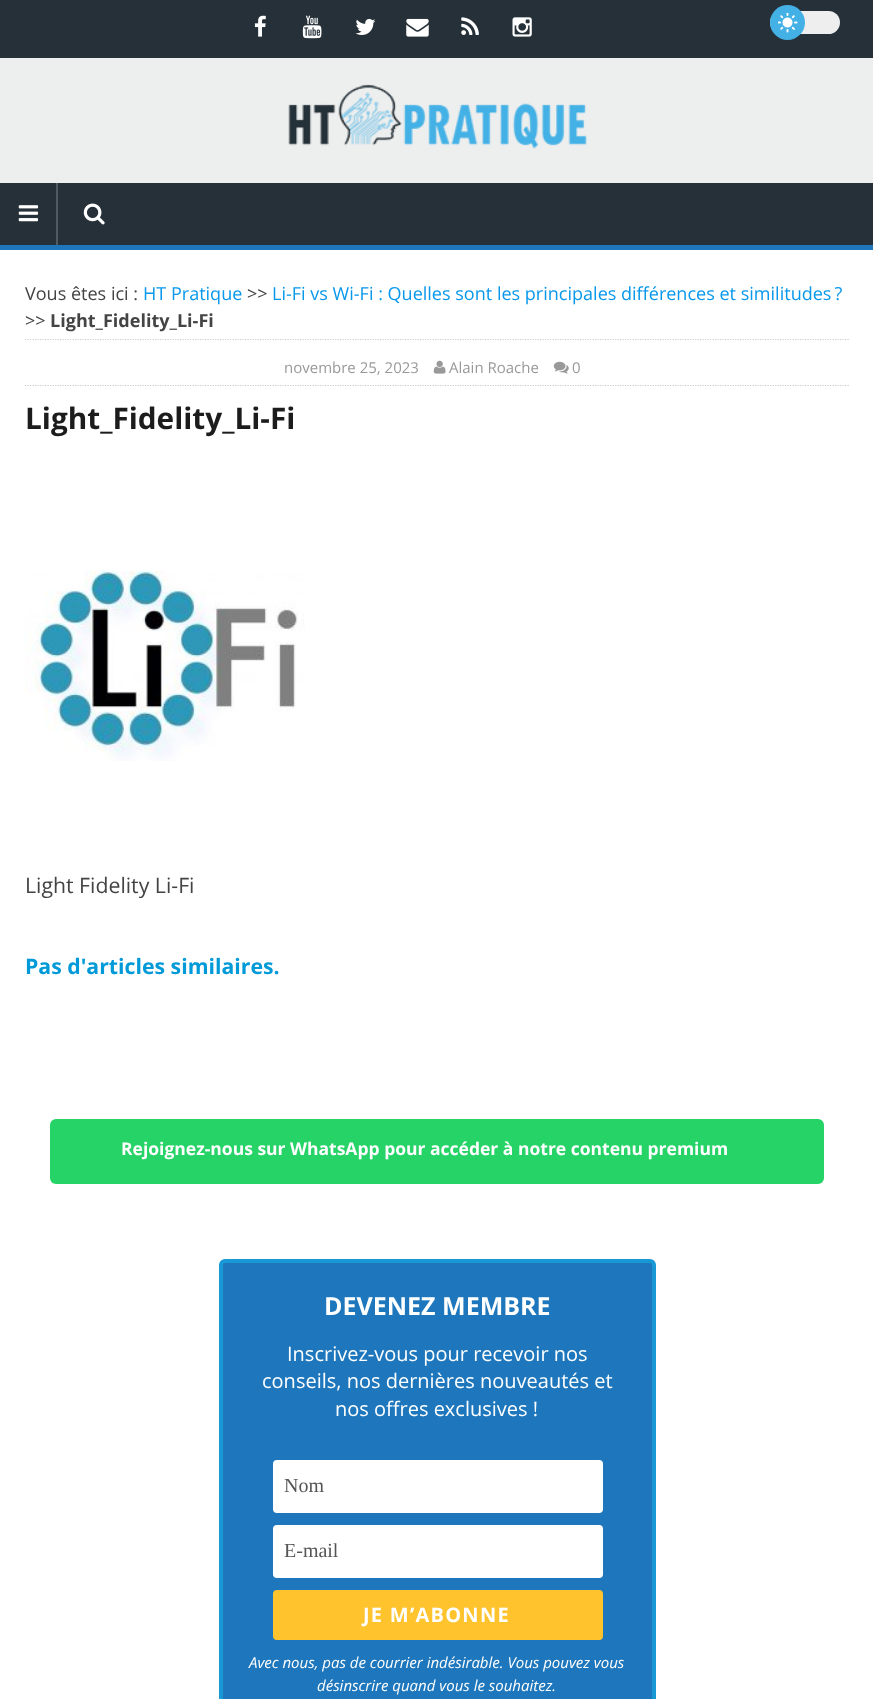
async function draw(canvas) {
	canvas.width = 873;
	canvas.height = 1699;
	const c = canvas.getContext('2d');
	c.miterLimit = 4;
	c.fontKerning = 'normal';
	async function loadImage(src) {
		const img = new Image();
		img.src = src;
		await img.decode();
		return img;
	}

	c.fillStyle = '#fff';
	c.fillRect(0, 0, 873, 1699);
	c.fillStyle = '#253038';
	c.fillRect(0, 0, 873, 58);
	c.drawImage(await loadImage('img1.png'), 254, 15, 12, 22);
	c.drawImage(await loadImage('img2.png'), 302, 15, 20, 24);
	c.drawImage(await loadImage('img3.png'), 355, 18, 21, 17);
	c.drawImage(await loadImage('img4.png'), 406, 18, 23, 19);
	c.drawImage(await loadImage('img5.png'), 461, 17, 18, 18);
	c.drawImage(await loadImage('img6.png'), 512, 17, 20, 20);
	c.fillStyle = '#eee';
	c.beginPath();
	c.roundRect(770, 11, 70, 23, 11.5);
	c.fill();
	c.fillStyle = '#43b1e5';
	c.beginPath();
	c.arc(787.5, 22.5, 17.5, 0, 2 * Math.PI);
	c.fill();
	c.drawImage(await loadImage('img7.png'), 778, 13, 20, 20);
	c.fillStyle = '#edeeee';
	c.fillRect(0, 58, 873, 125);
	c.drawImage(await loadImage('img8.png'), 288, 84, 299, 65);
	c.fillStyle = '#253038';
	c.fillRect(0, 183, 873, 62);
	c.fillStyle = '#1e77bc';
	c.fillRect(0, 245, 873, 5);
	c.drawImage(await loadImage('img9.png'), 18, 205, 21, 17);
	c.fillStyle = '#515a60';
	c.fillRect(56, 183, 2, 62);
	c.drawImage(await loadImage('img10.png'), 83, 203, 22, 22);
	c.font = '18.05px Open Sans';
	c.fillStyle = '#444';
	c.fillText('Vous êtes ici :', 25, 300);
	c.fillStyle = '#0898eb';
	c.fillText('HT Pratique', 143, 300);
	c.fillStyle = '#444';
	c.fillText('>>', 247, 300);
	c.fillStyle = '#0898eb';
	c.fillText('Li-Fi vs Wi-Fi : Quelles sont les principales différences et similitudes ?', 272, 300);
	c.fillStyle = '#444';
	c.fillText('>>', 25, 327);
	c.font = 'bold 18.05px Open Sans';
	c.fillText('Light_Fidelity_Li-Fi', 50, 327);
	c.save();
	c.beginPath();
	c.rect(25, 339, 824, 870);
	c.clip();
	c.beginPath();
	c.moveTo(25, 339.5);
	c.lineTo(849, 339.5);
	c.strokeStyle = '#ccc';
	c.lineWidth = 1.2;
	c.setLineDash([1.25, 1.25]);
	c.stroke();
	c.restore();
	c.beginPath();
	c.moveTo(25, 385.5);
	c.lineTo(849, 385.5);
	c.strokeStyle = '#ccc';
	c.lineWidth = 1.2;
	c.setLineDash([1.25, 1.25]);
	c.stroke();
	c.font = '15px Open Sans';
	c.fillStyle = '#999';
	c.fillText('novembre 25, 2023', 284, 373);
	c.drawImage(await loadImage('img11.png'), 433, 360, 13, 14);
	c.fillText('Alain Roache', 449, 373);
	c.drawImage(await loadImage('img12.png'), 553, 361, 16, 13);
	c.fillText('0', 572, 373);
	c.font = 'bold 29.75px Open Sans';
	c.fillStyle = '#1c1c1c';
	c.fillText('Light_Fidelity_Li-Fi', 25, 429);
	c.drawImage(await loadImage('img13.png'), 25, 570, 280, 191);
	c.font = '21.25px Open Sans';
	c.fillStyle = '#444';
	c.fillText('Light Fidelity Li-Fi', 25, 893);
	c.font = 'bold 21.25px Open Sans';
	c.fillStyle = '#009ad8';
	c.fillText('Pas d\'articles similaires.', 25, 974);
	c.fillStyle = '#25d366';
	c.beginPath();
	c.roundRect(50, 1119, 774, 65, 6);
	c.fill();
	c.font = 'bold 17.5px Open Sans';
	c.fillStyle = '#fff';
	c.fillText('Rejoignez-nous sur WhatsApp pour accéder à notre contenu premium', 121, 1155);
	c.fillStyle = '#1e77bc';
	c.beginPath();
	c.roundRect(221, 1261, 433, 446, 4);
	c.fill();
	c.strokeStyle = '#1998d6';
	c.lineWidth = 4;
	c.setLineDash([]);
	c.stroke();
	c.font = 'bold 25px Open Sans';
	c.fillStyle = '#fff';
	c.fillText('DEVENEZ MEMBRE', 324, 1315);
	c.font = '20px Open Sans';
	for (const [text, x, y] of [
		['Inscrivez-vous pour recevoir nos', 287, 1361],
		['conseils, nos dernières nouveautés et', 262, 1388],
		['nos offres exclusives !', 335, 1416],
	]) {
		c.fillText(text, x, y);
	}
	c.beginPath();
	c.roundRect(273, 1460, 330, 53, 4);
	c.fill();
	c.font = '20px Liberation Serif';
	c.fillStyle = '#555';
	c.fillText('Nom', 284, 1492);
	c.fillStyle = '#fff';
	c.beginPath();
	c.roundRect(273, 1525, 330, 53, 4);
	c.fill();
	c.fillStyle = '#555';
	c.fillText('E-mail', 284, 1557);
	c.fillStyle = '#fec32d';
	c.beginPath();
	c.roundRect(273, 1590, 330, 50, 4);
	c.fill();
	c.letterSpacing = '1.25px';
	c.font = 'bold 20px Open Sans';
	c.fillStyle = '#fff';
	c.fillText('JE M’ABONNE', 363, 1622);
	c.letterSpacing = '0px';
	c.font = 'italic 15px Open Sans';
	c.fillText('Avec nous, pas de courrier indésirable. Vous pouvez vous', 249, 1668);
	c.fillText('désinscrire quand vous le souhaitez.', 317, 1691);
}

draw(document.querySelector('canvas'));
